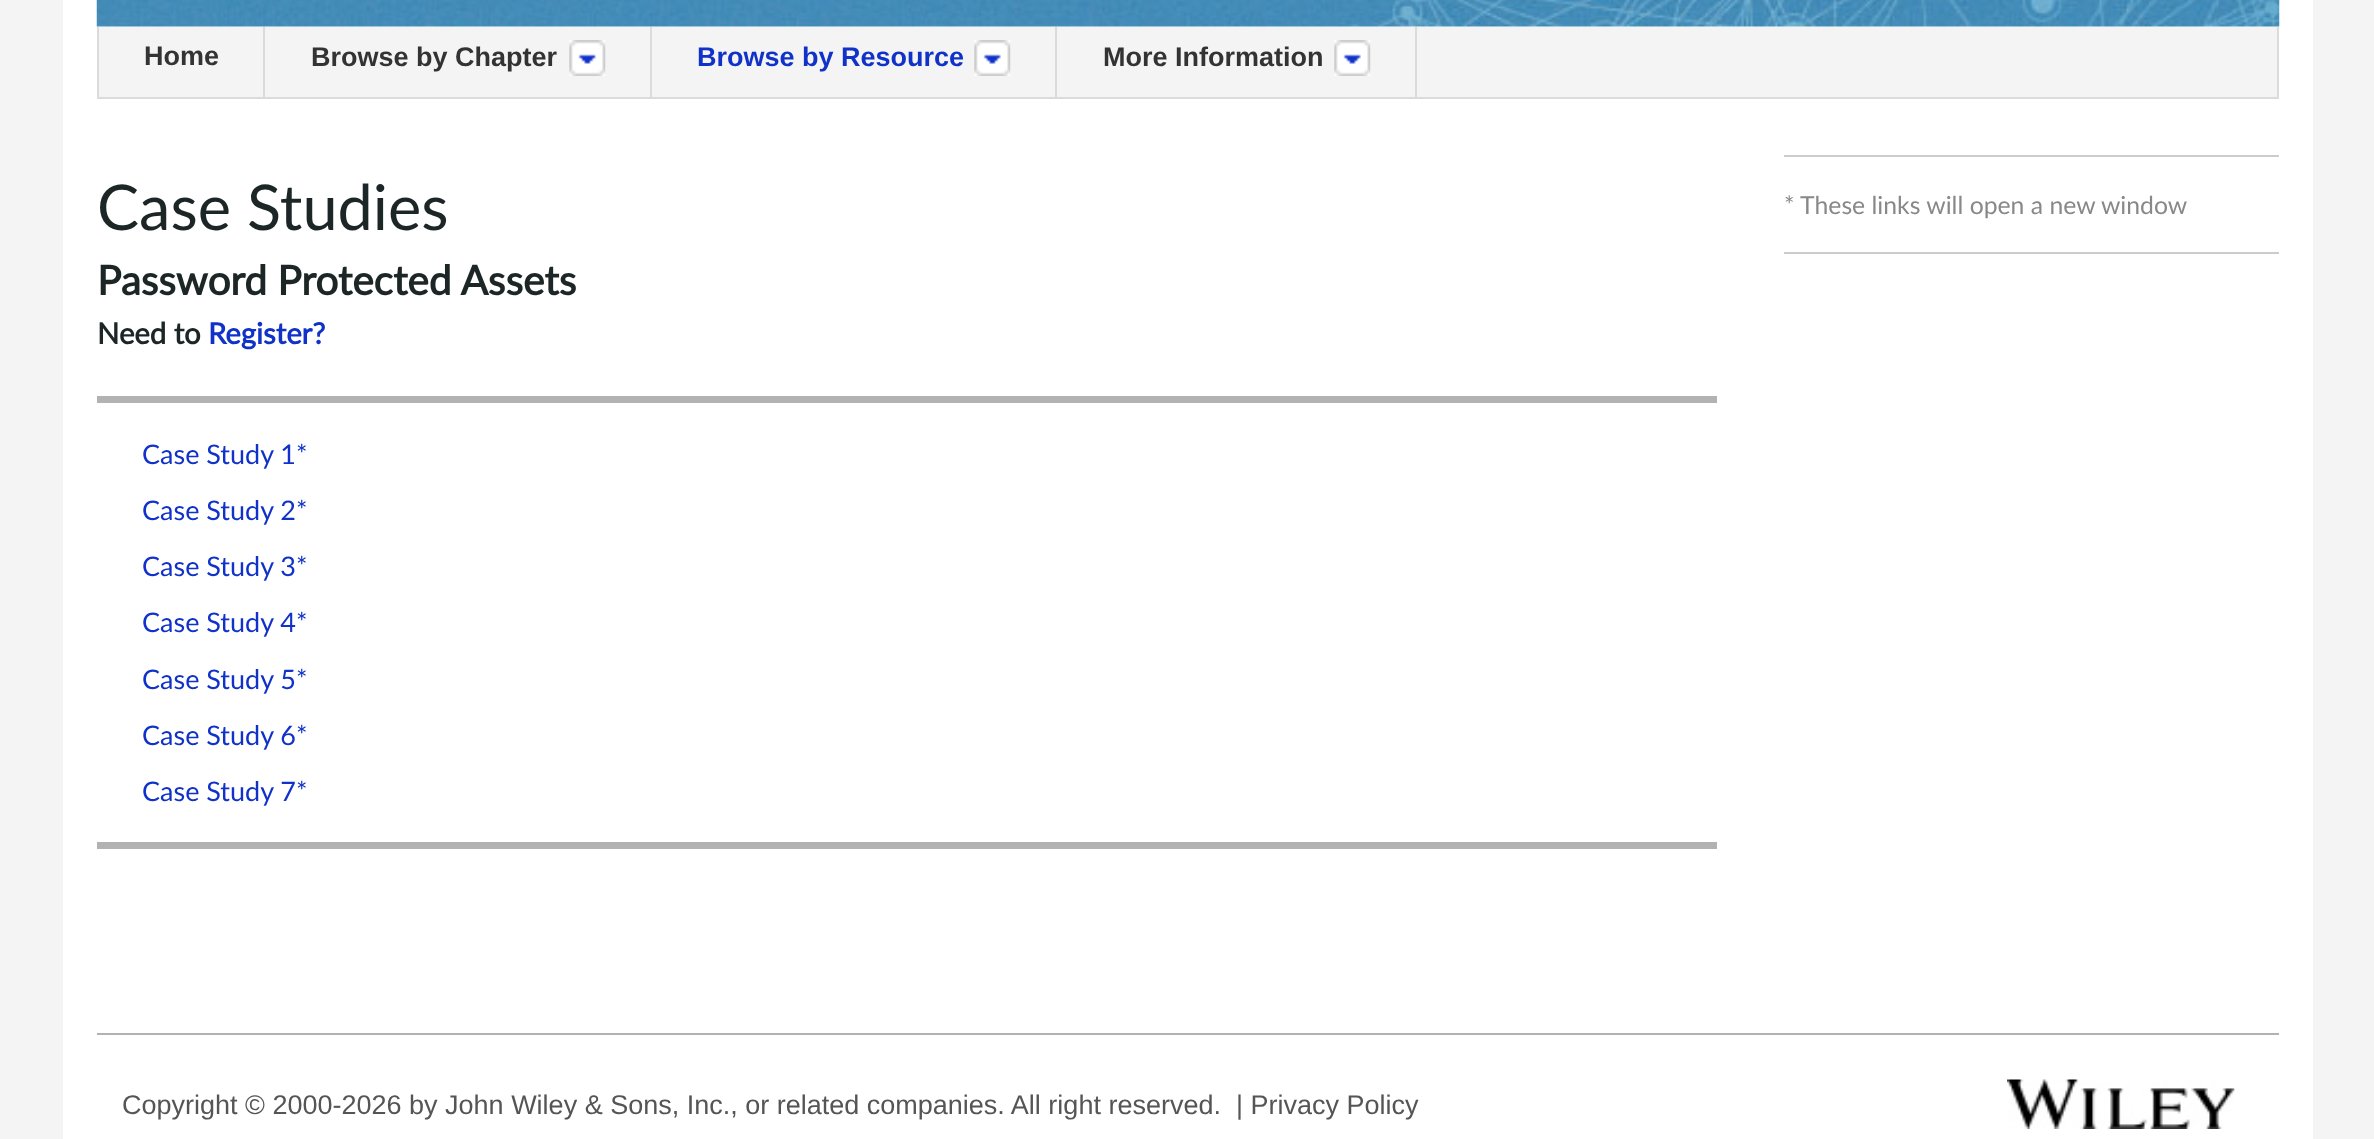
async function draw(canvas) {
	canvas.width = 2374;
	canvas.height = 1139;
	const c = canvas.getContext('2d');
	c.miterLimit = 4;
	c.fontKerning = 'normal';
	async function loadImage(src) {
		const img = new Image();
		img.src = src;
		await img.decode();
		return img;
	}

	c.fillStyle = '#f4f4f4';
	c.fillRect(0, 0, 2374, 1139);
	c.fillStyle = '#fff';
	c.fillRect(63, 0, 2250, 1139);
	c.drawImage(await loadImage('img1.png'), 96, 0, 2184, 27);
	for (const [x, y, w, h, color] of [
		[99, 27, 2178, 70, '#f4f4f4'],
		[2277, 27, 2, 72, '#dbdbdb'],
		[97, 97, 2182, 2, '#dbdbdb'],
		[97, 27, 2, 72, '#dbdbdb'],
		[263, 27, 2, 70, '#dbdbdb'],
	]) {
		c.fillStyle = color;
		c.fillRect(x, y, w, h);
	}
	c.font = 'bold 27px Liberation Sans';
	c.fillStyle = '#333';
	c.fillText('Home', 144, 65);
	c.fillStyle = '#dbdbdb';
	c.fillRect(650, 27, 2, 70);
	c.fillStyle = '#333';
	c.fillText('Browse by Chapter', 311, 66);
	c.drawImage(await loadImage('img2.png'), 569, 40, 37, 36);
	c.fillStyle = '#dbdbdb';
	c.fillRect(1055, 27, 2, 70);
	c.fillStyle = '#1032c9';
	c.fillText('Browse by Resource', 697, 66);
	c.drawImage(await loadImage('img2.png'), 974, 40, 37, 36);
	c.fillStyle = '#dbdbdb';
	c.fillRect(1415, 27, 2, 70);
	c.fillStyle = '#333';
	c.fillText('More Information', 1103, 66);
	c.drawImage(await loadImage('img3.png'), 1334, 40, 37, 36);
	c.font = '63px Lato';
	c.fillStyle = '#1d2626';
	c.fillText('Case Studies', 97, 230);
	c.font = 'bold 40.5px Lato';
	c.fillText('Password Protected Assets', 97, 295);
	c.font = 'bold 29.25px Lato';
	c.fillText('Need to', 97, 344);
	c.fillStyle = '#1032c9';
	c.fillText('Register?', 208, 344);
	c.fillStyle = '#b2b2b2';
	c.fillRect(97, 396, 1620, 7);
	c.font = '27px Lato';
	c.fillStyle = '#1032c9';
	for (const [text, x, y] of [
		['Case Study 1*', 142, 464],
		['Case Study 2*', 142, 520],
		['Case Study 3*', 142, 576],
		['Case Study 4*', 142, 632],
		['Case Study 5*', 142, 689],
		['Case Study 6*', 142, 745],
		['Case Study 7*', 142, 801],
	]) {
		c.fillText(text, x, y);
	}
	c.fillStyle = '#b2b2b2';
	c.fillRect(97, 842, 1620, 7);
	c.fillStyle = '#ccc';
	c.fillRect(1784, 155, 495, 2);
	c.font = '24.75px Lato';
	c.fillStyle = '#888';
	c.fillText('* These links will open a new window', 1784, 214);
	c.fillStyle = '#ccc';
	c.fillRect(1784, 252, 495, 2);
	c.fillStyle = '#b2b2b2';
	c.fillRect(97, 1033, 2182, 2);
	c.font = '27px Liberation Sans';
	c.fillStyle = '#555';
	c.fillText('Copyright © 2000-2026 by John Wiley & Sons, Inc., or related companies. All right reserved.  | Privacy Policy', 122, 1114);
	c.drawImage(await loadImage('img4.png'), 2007, 1079, 228, 50);
}

draw(document.querySelector('canvas'));
